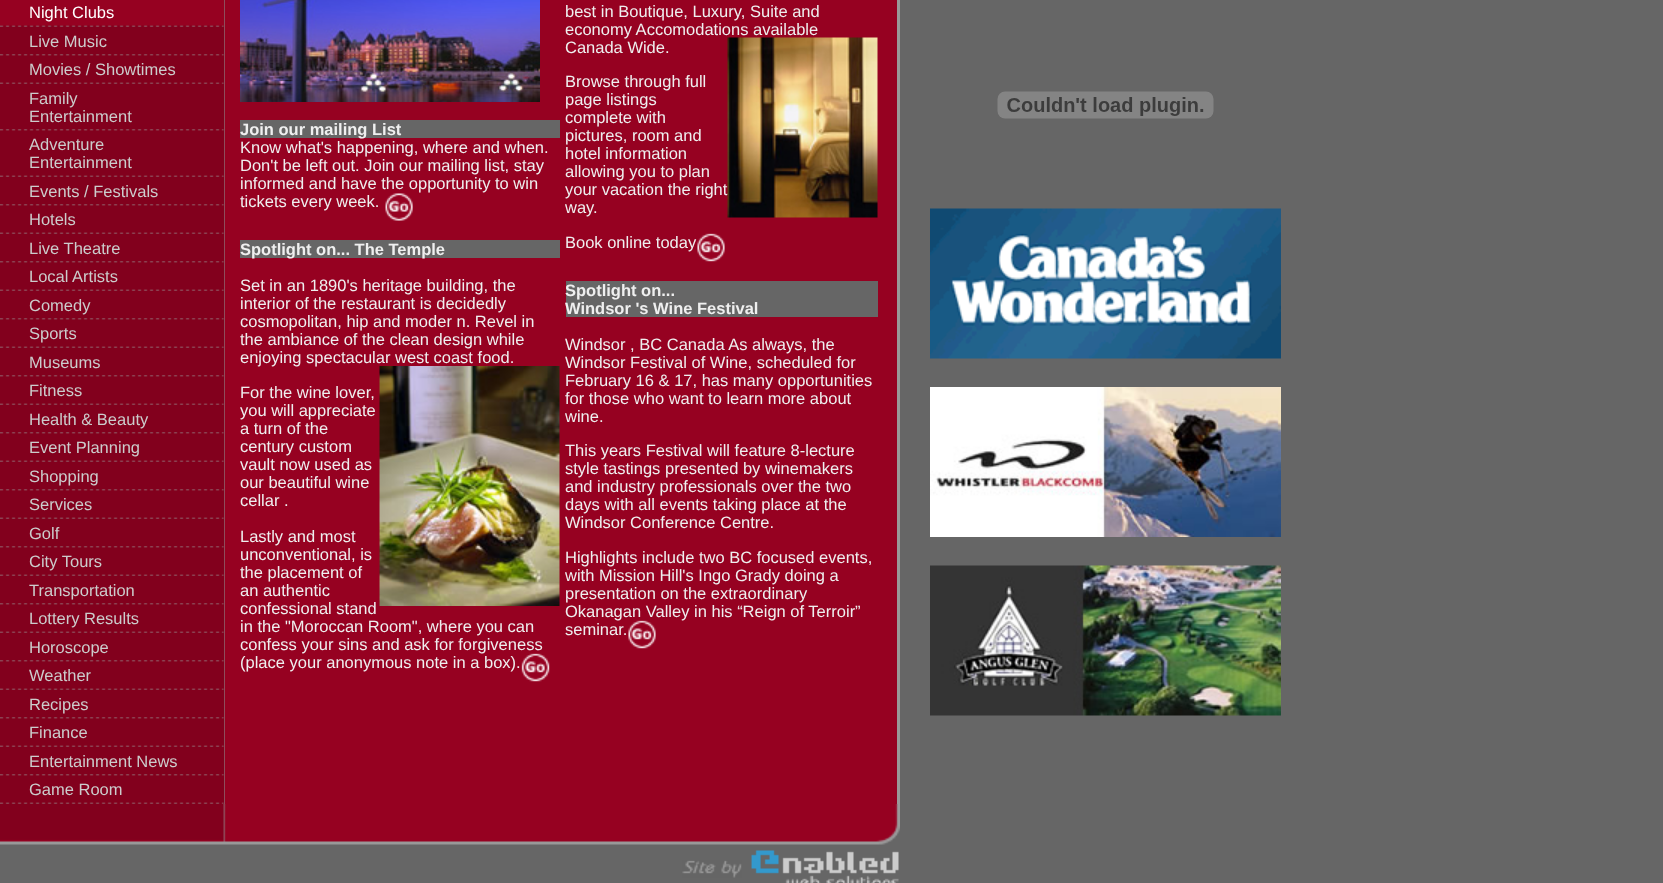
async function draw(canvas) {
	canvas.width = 1663;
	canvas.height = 883;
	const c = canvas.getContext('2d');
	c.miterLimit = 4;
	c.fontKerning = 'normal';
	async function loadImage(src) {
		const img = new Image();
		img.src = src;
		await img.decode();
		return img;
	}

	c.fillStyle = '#666';
	c.fillRect(0, 0, 1663, 883);
	c.fillStyle = '#82001d';
	c.fillRect(0, 26, 224, 778);
	c.fillStyle = '#960121';
	c.fillRect(0, 0, 224, 26);
	c.font = '16.5px Liberation Sans';
	c.fillStyle = '#fff';
	c.fillText('Night Clubs', 29, 18);
	c.drawImage(await loadImage('img1.png'), 0, 25, 224, 2);
	c.fillStyle = '#ccc';
	c.fillText('Live Music', 29, 47);
	c.drawImage(await loadImage('img2.png'), 0, 54, 224, 2);
	c.fillText('Movies / Showtimes', 29, 75);
	c.drawImage(await loadImage('img3.png'), 0, 82, 224, 2);
	c.fillText('Family', 29, 104);
	c.fillText('Entertainment', 29, 122);
	c.drawImage(await loadImage('img2.png'), 0, 129, 224, 2);
	c.fillText('Adventure', 29, 150);
	c.fillText('Entertainment', 29, 168);
	c.drawImage(await loadImage('img3.png'), 0, 175, 224, 2);
	c.fillText('Events / Festivals', 29, 197);
	c.drawImage(await loadImage('img2.png'), 0, 204, 224, 2);
	c.fillText('Hotels', 29, 225);
	c.drawImage(await loadImage('img3.png'), 0, 232, 224, 2);
	c.fillText('Live Theatre', 29, 254);
	c.drawImage(await loadImage('img2.png'), 0, 261, 224, 2);
	c.fillText('Local Artists', 29, 282);
	c.drawImage(await loadImage('img3.png'), 0, 289, 224, 2);
	c.fillText('Comedy', 29, 311);
	c.drawImage(await loadImage('img2.png'), 0, 318, 224, 2);
	c.fillText('Sports', 29, 339);
	c.drawImage(await loadImage('img3.png'), 0, 346, 224, 2);
	c.fillText('Museums', 29, 368);
	c.drawImage(await loadImage('img2.png'), 0, 375, 224, 2);
	c.fillText('Fitness', 29, 396);
	c.drawImage(await loadImage('img3.png'), 0, 403, 224, 2);
	c.fillText('Health & Beauty', 29, 425);
	c.drawImage(await loadImage('img2.png'), 0, 432, 224, 2);
	c.fillText('Event Planning', 29, 453);
	c.drawImage(await loadImage('img3.png'), 0, 460, 224, 2);
	c.fillText('Shopping', 29, 482);
	c.drawImage(await loadImage('img2.png'), 0, 489, 224, 2);
	c.fillText('Services', 29, 510);
	c.drawImage(await loadImage('img3.png'), 0, 517, 224, 2);
	c.fillText('Golf', 29, 539);
	c.drawImage(await loadImage('img2.png'), 0, 546, 224, 2);
	c.fillText('City Tours', 29, 567);
	c.drawImage(await loadImage('img3.png'), 0, 574, 224, 2);
	c.fillText('Transportation', 29, 596);
	c.drawImage(await loadImage('img2.png'), 0, 603, 224, 2);
	c.fillText('Lottery Results', 29, 624);
	c.drawImage(await loadImage('img3.png'), 0, 631, 224, 2);
	c.fillText('Horoscope', 29, 653);
	c.drawImage(await loadImage('img2.png'), 0, 660, 224, 2);
	c.fillText('Weather', 29, 681);
	c.drawImage(await loadImage('img3.png'), 0, 688, 224, 2);
	c.fillText('Recipes', 29, 710);
	c.drawImage(await loadImage('img2.png'), 0, 717, 224, 2);
	c.fillText('Finance', 29, 738);
	c.drawImage(await loadImage('img3.png'), 0, 745, 224, 2);
	c.fillText('Entertainment News', 29, 767);
	c.drawImage(await loadImage('img2.png'), 0, 774, 224, 2);
	c.fillText('Game Room', 29, 795);
	c.drawImage(await loadImage('img3.png'), 0, 802, 224, 2);
	c.fillStyle = '#8e4d5b';
	c.fillRect(224, 0, 1, 804);
	c.fillStyle = '#960121';
	c.fillRect(225, 0, 672, 804);
	c.drawImage(await loadImage('img4.png'), 240, 0, 300, 102);
	c.fillStyle = '#666';
	c.fillRect(240, 120, 320, 18);
	c.font = 'bold 16.5px Liberation Sans';
	c.fillStyle = '#efefef';
	c.fillText('Join our mailing List', 240, 135);
	c.font = '16.5px Liberation Sans';
	for (const [text, x, y] of [
		['Know what\'s happening, where and when.', 240, 153],
		['Don\'t be left out. Join our mailing list, stay', 240, 171],
		['informed and have the opportunity to win', 240, 189],
		['tickets every week.', 240, 207],
	]) {
		c.fillText(text, x, y);
	}
	c.drawImage(await loadImage('img5.png'), 385, 193, 28, 28);
	c.fillStyle = '#666';
	c.fillRect(240, 240, 320, 18);
	c.font = 'bold 16.5px Liberation Sans';
	c.fillStyle = '#efefef';
	c.fillText('Spotlight on... The Temple', 240, 255);
	c.font = '16.5px Liberation Sans';
	for (const [text, x, y] of [
		['Set in an 1890\'s heritage building, the', 240, 291],
		['interior of the restaurant is decidedly', 240, 309],
		['cosmopolitan, hip and moder n. Revel in', 240, 327],
		['the ambiance of the clean design while', 240, 345],
	]) {
		c.fillText(text, x, y);
	}
	c.drawImage(await loadImage('img6.png'), 379, 366, 181, 240);
	for (const [text, x, y] of [
		['enjoying spectacular west coast food.', 240, 363],
		['For the wine lover,', 240, 398],
		['you will appreciate', 240, 416],
		['a turn of the', 240, 434],
		['century custom', 240, 452],
		['vault now used as', 240, 470],
		['our beautiful wine', 240, 488],
		['cellar .', 240, 506],
		['Lastly and most', 240, 542],
		['unconventional, is', 240, 560],
		['the placement of', 240, 578],
		['an authentic', 240, 596],
		['confessional stand', 240, 614],
		['in the "Moroccan Room", where you can', 240, 632],
		['confess your sins and ask for forgiveness', 240, 650],
		['(place your anonymous note in a box).', 240, 668],
	]) {
		c.fillText(text, x, y);
	}
	c.drawImage(await loadImage('img7.png'), 521, 653, 29, 29);
	c.fillText('best in Boutique, Luxury, Suite and', 565, 17);
	c.drawImage(await loadImage('img8.png'), 727, 37, 151, 181);
	for (const [text, x, y] of [
		['economy Accomodations available', 565, 35],
		['Canada Wide.', 565, 53],
		['Browse through full', 565, 87],
		['page listings', 565, 105],
		['complete with', 565, 123],
		['pictures, room and', 565, 141],
		['hotel information', 565, 159],
		['allowing you to plan', 565, 177],
		['your vacation the right', 565, 195],
		['way.', 565, 213],
		['Book online today', 565, 248],
	]) {
		c.fillText(text, x, y);
	}
	c.drawImage(await loadImage('img9.png'), 697, 233, 28, 29);
	c.fillStyle = '#666';
	c.fillRect(566, 281, 312, 36);
	c.font = 'bold 16.5px Liberation Sans';
	c.fillStyle = '#efefef';
	c.fillText('Spotlight on...', 565, 296);
	c.fillText('Windsor \'s Wine Festival', 565, 314);
	c.font = '16.5px Liberation Sans';
	for (const [text, x, y] of [
		['Windsor , BC Canada As always, the', 565, 350],
		['Windsor Festival of Wine, scheduled for', 565, 368],
		['February 16 & 17, has many opportunities', 565, 386],
		['for those who want to learn more about', 565, 404],
		['wine.', 565, 422],
		['This years Festival will feature 8-lecture', 565, 456],
		['style tastings presented by winemakers', 565, 474],
		['and industry professionals over the two', 565, 492],
		['days with all events taking place at the', 565, 510],
		['Windsor Conference Centre.', 565, 528],
		['Highlights include two BC focused events,', 565, 563],
		['with Mission Hill\'s Ingo Grady doing a', 565, 581],
		['presentation on the extraordinary', 565, 599],
		['Okanagan Valley in his “Reign of Terroir”', 565, 617],
		['seminar.', 565, 635],
	]) {
		c.fillText(text, x, y);
	}
	c.drawImage(await loadImage('img9.png'), 628, 620, 28, 29);
	c.fillStyle = '#999';
	c.fillRect(897, 0, 3, 804);
	c.drawImage(await loadImage('img10.png'), 0, 804, 900, 41);
	c.drawImage(await loadImage('img11.png'), 682, 860, 60, 18);
	c.drawImage(await loadImage('img12.png'), 751, 850, 148, 33);
	c.drawImage(await loadImage('img13.png'), 997, 91, 217, 28);
	c.drawImage(await loadImage('img14.png'), 930, 208, 351, 151);
	c.drawImage(await loadImage('img15.png'), 930, 387, 351, 150);
	c.drawImage(await loadImage('img16.png'), 930, 565, 351, 151);
}

draw(document.querySelector('canvas'));
